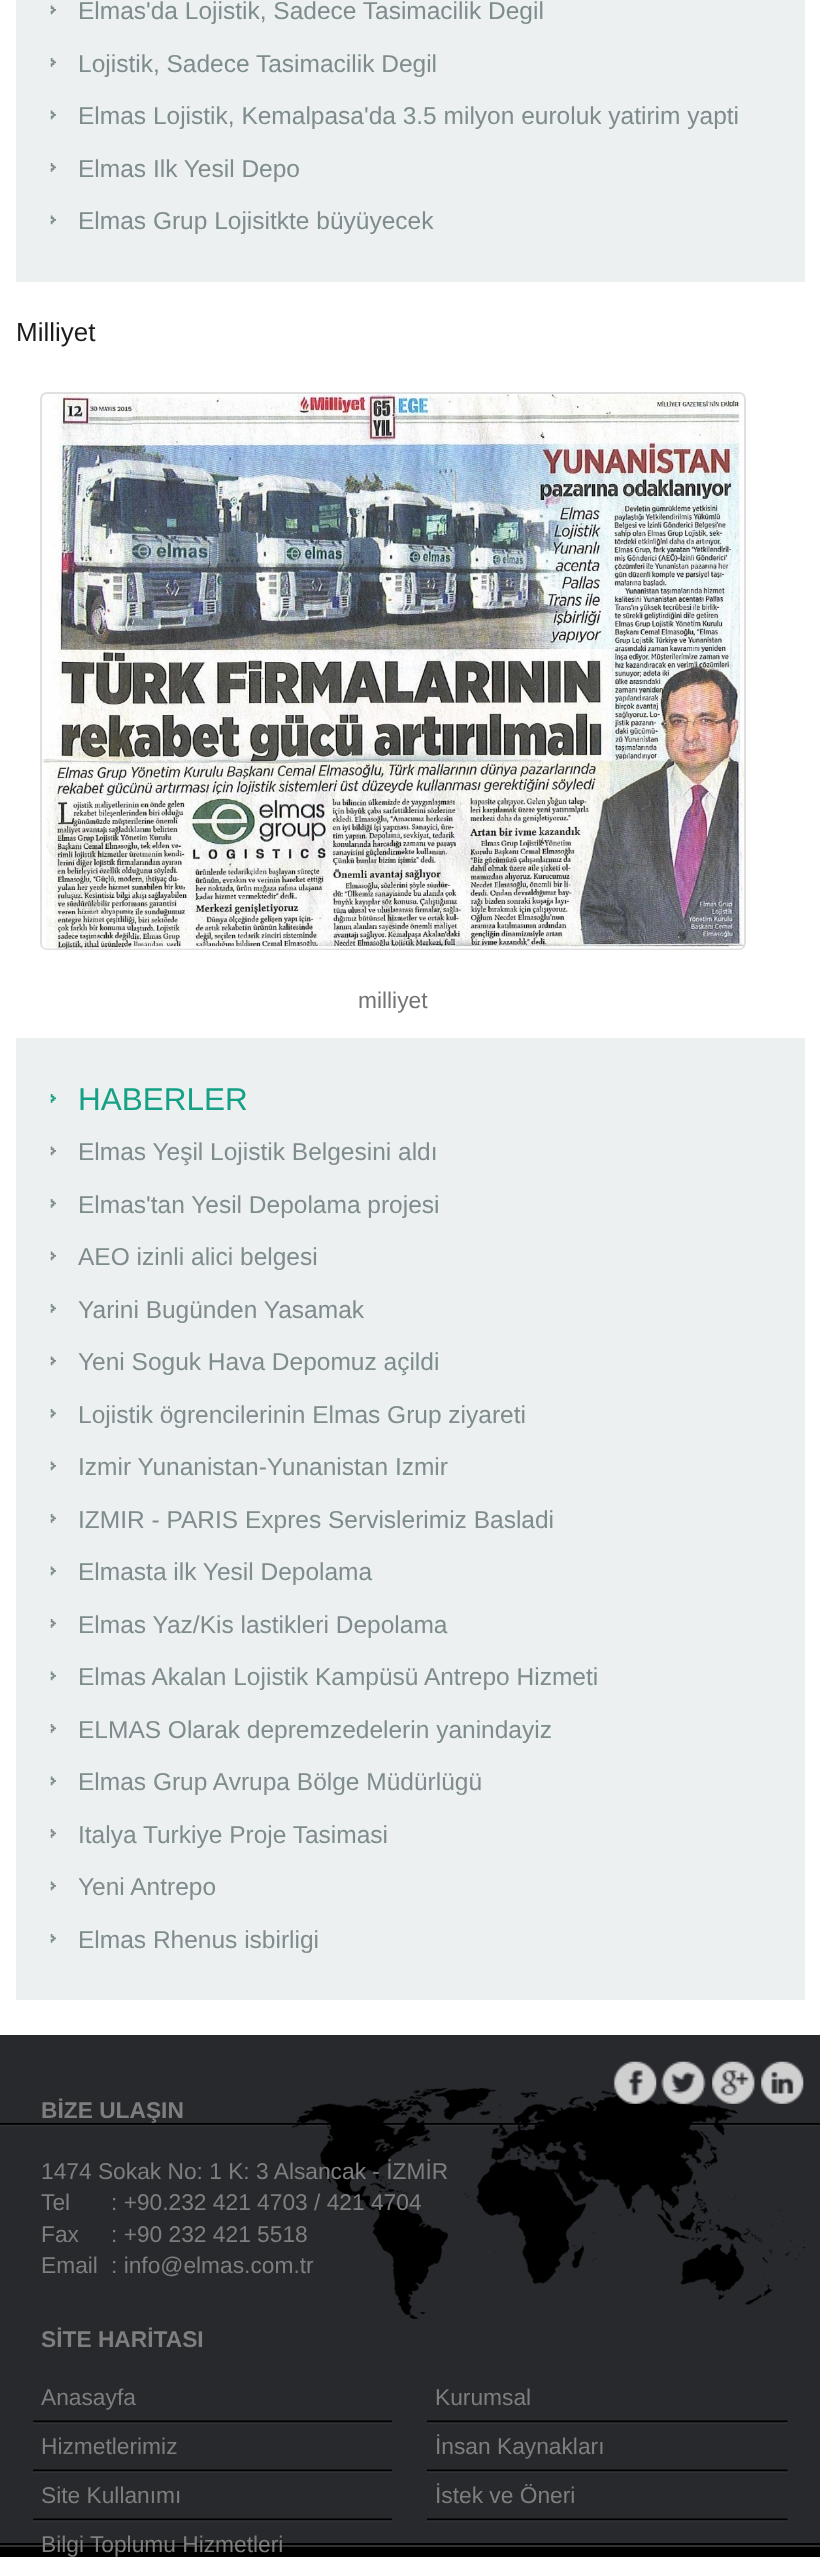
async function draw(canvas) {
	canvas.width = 820;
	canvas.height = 2557;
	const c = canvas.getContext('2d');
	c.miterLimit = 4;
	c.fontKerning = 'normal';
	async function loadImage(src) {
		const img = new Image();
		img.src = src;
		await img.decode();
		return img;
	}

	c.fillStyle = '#fff';
	c.fillRect(0, 0, 820, 2557);
	c.fillStyle = '#ecf0f1';
	c.fillRect(16, 0, 789, 282);
	c.drawImage(await loadImage('img1.png'), 50, 5, 6, 10);
	c.font = '24.5px Liberation Sans';
	c.fillStyle = '#7f8c8d';
	c.fillText('Elmas\'da Lojistik, Sadece Tasimacilik Degil', 78, 19);
	c.drawImage(await loadImage('img2.png'), 50, 58, 6, 9);
	c.fillText('Lojistik, Sadece Tasimacilik Degil', 78, 72);
	c.drawImage(await loadImage('img1.png'), 50, 110, 6, 10);
	c.fillText('Elmas Lojistik, Kemalpasa\'da 3.5 milyon euroluk yatirim yapti', 78, 124);
	c.drawImage(await loadImage('img2.png'), 50, 163, 6, 9);
	c.fillText('Elmas Ilk Yesil Depo', 78, 177);
	c.drawImage(await loadImage('img1.png'), 50, 215, 6, 10);
	c.fillText('Elmas Grup Lojisitkte büyüyecek', 78, 229);
	c.font = '26px Liberation Sans';
	c.fillStyle = '#1c1c1c';
	c.fillText('Milliyet', 16, 341);
	c.beginPath();
	c.roundRect(41, 393, 704, 556, 6);
	c.strokeStyle = '#e0e0e0';
	c.lineWidth = 2;
	c.stroke();
	c.drawImage(await loadImage('img3.png'), 42, 394, 702, 555);
	c.font = '22.75px Liberation Sans';
	c.fillStyle = '#747474';
	c.fillText('milliyet', 358, 1008);
	c.fillStyle = '#ecf0f1';
	c.fillRect(16, 1038, 789, 962);
	c.drawImage(await loadImage('img4.png'), 50, 1094, 6, 9);
	c.font = '31.5px Liberation Sans';
	c.fillStyle = '#16a085';
	c.fillText('HABERLER', 78, 1110);
	c.drawImage(await loadImage('img1.png'), 50, 1146, 6, 10);
	c.font = '24.5px Liberation Sans';
	c.fillStyle = '#7f8c8d';
	c.fillText('Elmas Yeşil Lojistik Belgesini aldı', 78, 1160);
	c.drawImage(await loadImage('img2.png'), 50, 1199, 6, 9);
	c.fillText('Elmas\'tan Yesil Depolama projesi', 78, 1213);
	c.drawImage(await loadImage('img1.png'), 50, 1251, 6, 10);
	c.fillText('AEO izinli alici belgesi', 78, 1265);
	c.drawImage(await loadImage('img2.png'), 50, 1304, 6, 9);
	c.fillText('Yarini Bugünden Yasamak', 78, 1318);
	c.drawImage(await loadImage('img1.png'), 50, 1356, 6, 10);
	c.fillText('Yeni Soguk Hava Depomuz açildi', 78, 1370);
	c.drawImage(await loadImage('img2.png'), 50, 1409, 6, 9);
	c.fillText('Lojistik ögrencilerinin Elmas Grup ziyareti', 78, 1423);
	c.drawImage(await loadImage('img1.png'), 50, 1461, 6, 10);
	c.fillText('Izmir Yunanistan-Yunanistan Izmir', 78, 1475);
	c.drawImage(await loadImage('img2.png'), 50, 1514, 6, 9);
	c.fillText('IZMIR - PARIS Expres Servislerimiz Basladi', 78, 1528);
	c.drawImage(await loadImage('img1.png'), 50, 1566, 6, 10);
	c.fillText('Elmasta ilk Yesil Depolama', 78, 1580);
	c.drawImage(await loadImage('img2.png'), 50, 1619, 6, 9);
	c.fillText('Elmas Yaz/Kis lastikleri Depolama', 78, 1633);
	c.drawImage(await loadImage('img1.png'), 50, 1671, 6, 10);
	c.fillText('Elmas Akalan Lojistik Kampüsü Antrepo Hizmeti', 78, 1685);
	c.drawImage(await loadImage('img2.png'), 50, 1724, 6, 9);
	c.fillText('ELMAS Olarak depremzedelerin yanindayiz', 78, 1738);
	c.drawImage(await loadImage('img1.png'), 50, 1776, 6, 10);
	c.fillText('Elmas Grup Avrupa Bölge Müdürlügü', 78, 1790);
	c.drawImage(await loadImage('img2.png'), 50, 1829, 6, 9);
	c.fillText('Italya Turkiye Proje Tasimasi', 78, 1843);
	c.drawImage(await loadImage('img1.png'), 50, 1881, 6, 10);
	c.fillText('Yeni Antrepo', 78, 1895);
	c.drawImage(await loadImage('img2.png'), 50, 1934, 6, 9);
	c.fillText('Elmas Rhenus isbirligi', 78, 1948);
	c.fillStyle = '#27292d';
	c.fillRect(0, 2035, 820, 508);
	c.drawImage(await loadImage('img5.png'), 0, 2123, 820, 4);
	c.fillStyle = '#000';
	c.fillRect(0, 2543, 820, 2);
	c.font = 'bold 22.75px Liberation Sans';
	c.fillStyle = '#7e7e7e';
	c.fillText('BİZE ULAŞIN', 41, 2118);
	c.drawImage(await loadImage('img10.png'), 289, 2088, 516, 231);
	c.font = '22.75px Liberation Sans';
	for (const [text, x, y] of [
		['1474 Sokak No: 1 K: 3 Alsancak - İZMİR', 41, 2179],
		['Tel', 41, 2210],
		[': +90.232 421 4703 / 421 4704', 111, 2210],
		['Fax', 41, 2242],
		[': +90 232 421 5518', 111, 2242],
		['Email', 41, 2273],
		[': info@elmas.com.tr', 111, 2273],
	]) {
		c.fillText(text, x, y);
	}
	c.drawImage(await loadImage('img6.png'), 613, 2061, 44, 43);
	c.drawImage(await loadImage('img7.png'), 661, 2061, 45, 43);
	c.drawImage(await loadImage('img8.png'), 712, 2061, 43, 43);
	c.drawImage(await loadImage('img9.png'), 761, 2061, 43, 43);
	c.font = 'bold 22.75px Liberation Sans';
	c.fillText('SİTE HARİTASI', 41, 2347);
	c.drawImage(await loadImage('img11.png'), 33, 2420, 359, 4);
	c.font = '22.75px Liberation Sans';
	c.fillText('Anasayfa', 41, 2405);
	c.drawImage(await loadImage('img12.png'), 427, 2420, 361, 4);
	c.fillText('Kurumsal', 435, 2405);
	c.drawImage(await loadImage('img11.png'), 33, 2469, 359, 4);
	c.fillText('Hizmetlerimiz', 41, 2454);
	c.drawImage(await loadImage('img12.png'), 427, 2469, 361, 4);
	c.fillText('İnsan Kaynakları', 435, 2454);
	c.drawImage(await loadImage('img13.png'), 33, 2518, 359, 4);
	c.fillText('Site Kullanımı', 41, 2503);
	c.drawImage(await loadImage('img14.png'), 427, 2518, 361, 4);
	c.fillText('İstek ve Öneri', 435, 2503);
	c.fillStyle = '#000';
	c.fillRect(0, 2547, 820, 10);
	c.fillStyle = '#2f3135';
	c.fillRect(0, 2545, 820, 2);
	c.fillStyle = '#7e7e7e';
	c.fillText('Bilgi Toplumu Hizmetleri', 41, 2552);
}

draw(document.querySelector('canvas'));
